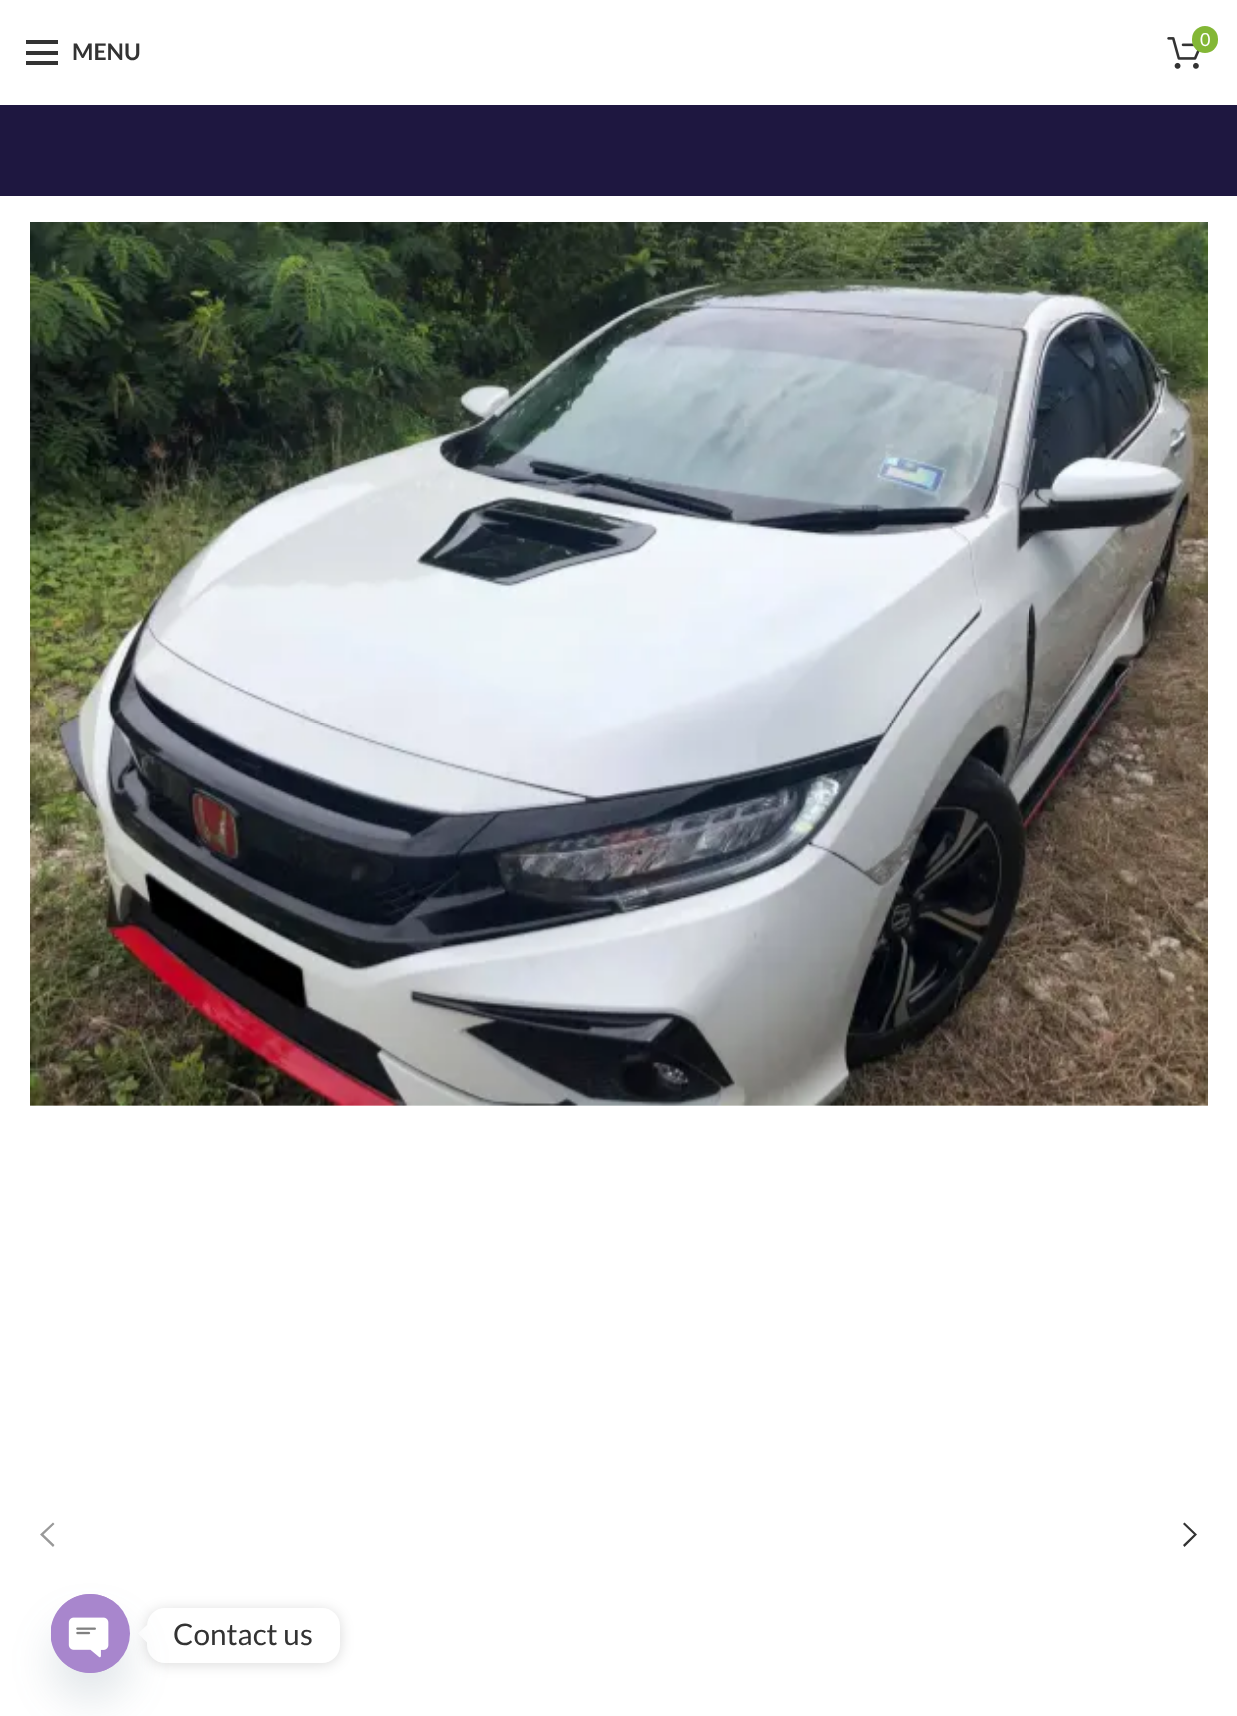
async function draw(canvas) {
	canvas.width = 1237;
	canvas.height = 1716;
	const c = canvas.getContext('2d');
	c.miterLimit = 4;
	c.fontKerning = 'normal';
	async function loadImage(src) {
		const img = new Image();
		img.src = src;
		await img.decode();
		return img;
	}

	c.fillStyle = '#fff';
	c.fillRect(0, 0, 1237, 1716);
	c.drawImage(await loadImage('img1.png'), 1167, 37, 33, 32);
	c.fillStyle = '#83b735';
	c.beginPath();
	c.roundRect(1192, 26, 26, 27, 13);
	c.fill();
	c.font = '18px Lato';
	c.fillStyle = '#fff';
	c.fillText('0', 1200, 46);
	for (const [x, y, w, h, color] of [
		[26, 51, 32, 4, '#333'],
		[26, 40, 32, 4, '#333'],
		[26, 61, 32, 4, '#333'],
	]) {
		c.fillStyle = color;
		c.fillRect(x, y, w, h);
	}
	c.font = 'bold 23px Lato';
	c.fillText('MENU', 72, 60);
	c.fillStyle = '#1e1740';
	c.fillRect(0, 105, 1237, 91);
	c.drawImage(await loadImage('img2.png'), 30, 222, 1178, 884);
	c.fillStyle = '#999';
	c.beginPath();
	c.moveTo(54.5, 1524);
	c.lineTo(43.5, 1534.5);
	c.lineTo(54.5, 1545);
	c.lineTo(53, 1547);
	c.lineTo(40, 1534.5);
	c.lineTo(53, 1522.5);
	c.closePath();
	c.fill();
	c.fillStyle = '#333';
	c.beginPath();
	c.moveTo(1184.5, 1522.5);
	c.lineTo(1197, 1534.5);
	c.lineTo(1184.5, 1547);
	c.lineTo(1183, 1545);
	c.lineTo(1194, 1534.5);
	c.lineTo(1183, 1524);
	c.closePath();
	c.fill();
	c.fillStyle = '#00000026';
	c.filter = 'blur(7px)';
	c.beginPath();
	c.roundRect(147, 1610, 193, 54, 18);
	c.fill();
	c.filter = 'none';
	c.fillStyle = '#fff';
	c.beginPath();
	c.roundRect(147, 1608, 193, 55, 18);
	c.fill();
	c.beginPath();
	c.moveTo(147, 1625);
	c.lineTo(147, 1642.5);
	c.lineTo(138, 1633.5);
	c.closePath();
	c.fill();
	c.fillStyle = '#49687e29';
	c.filter = 'blur(21px)';
	c.beginPath();
	c.roundRect(51, 1622, 79, 79, 39.5);
	c.fill();
	c.filter = 'none';
	c.fillStyle = '#a886cd';
	c.beginPath();
	c.arc(90.5, 1633.5, 39.5, 0, 2 * Math.PI);
	c.fill();
	c.drawImage(await loadImage('img3.png'), 51, 1594, 62, 79);
	c.font = '29.75px Lato';
	c.fillStyle = '#333';
	c.fillText('Contact us', 173, 1645);
}

draw(document.querySelector('canvas'));
